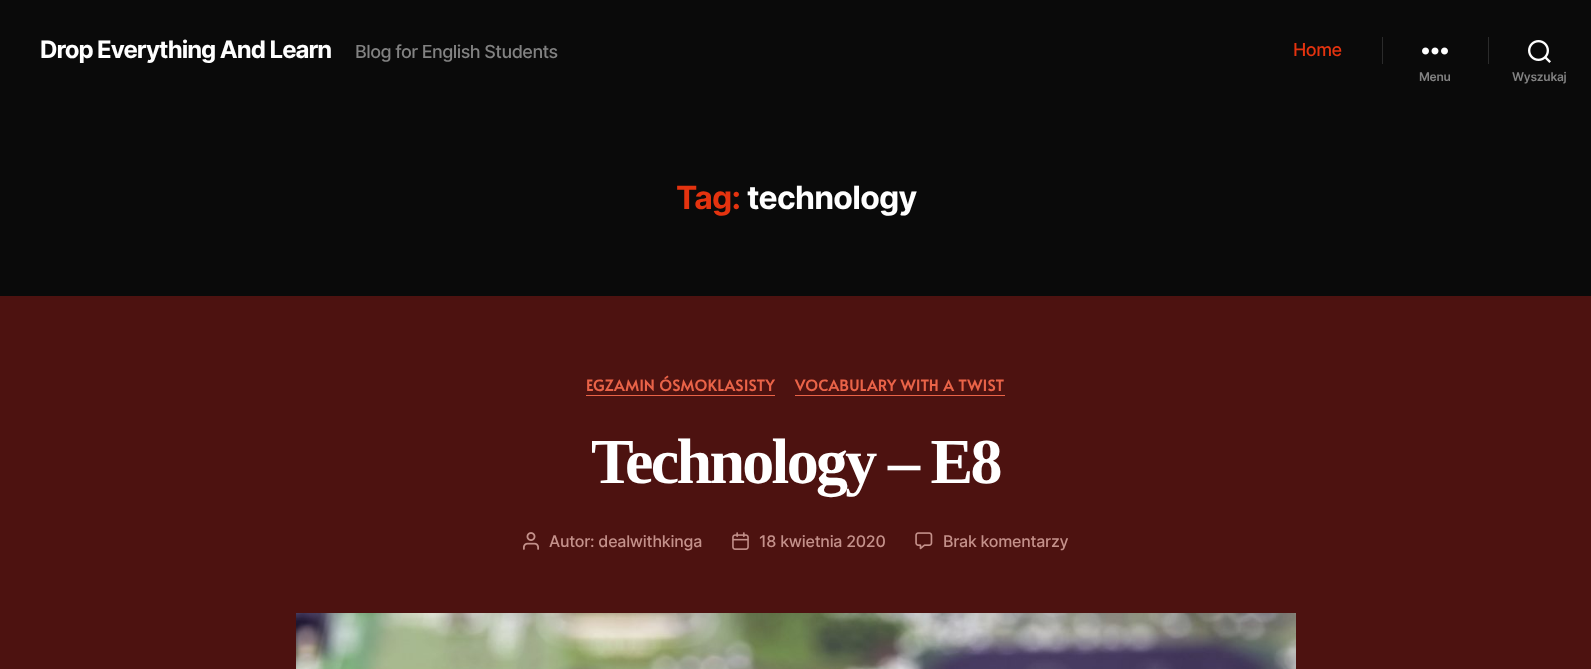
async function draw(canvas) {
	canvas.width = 1591;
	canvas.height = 669;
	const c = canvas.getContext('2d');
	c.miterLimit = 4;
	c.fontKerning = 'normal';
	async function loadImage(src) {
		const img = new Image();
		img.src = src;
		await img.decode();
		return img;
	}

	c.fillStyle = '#4d1210';
	c.fillRect(0, 0, 1591, 669);
	c.fillStyle = '#0a0a0a';
	c.fillRect(0, 0, 1591, 296);
	c.letterSpacing = '-1px';
	c.font = 'bold 24px Inter';
	c.fillStyle = '#fff';
	c.fillText('Drop Everything And Learn', 40, 58);
	c.letterSpacing = '-0.55px';
	c.font = '500 18px Inter';
	c.fillStyle = '#828282';
	c.fillText('Blog for English Students', 355, 58);
	c.letterSpacing = '-0.5px';
	c.fillStyle = '#e4330f';
	c.fillText('Home', 1293, 56);
	c.fillStyle = '#2b2b2b';
	c.fillRect(1382, 37, 1, 27);
	c.drawImage(await loadImage('img1.png'), 1422, 47, 26, 8);
	c.letterSpacing = '-0.25px';
	c.font = '600 12px Inter';
	c.fillStyle = '#828282';
	c.fillText('Menu', 1419, 81);
	c.fillStyle = '#2b2b2b';
	c.fillRect(1488, 37, 1, 27);
	c.drawImage(await loadImage('img2.png'), 1528, 40, 23, 23);
	c.fillStyle = '#828282';
	c.fillText('Wyszukaj', 1512, 81);
	c.letterSpacing = '-0.75px';
	c.font = 'bold 32px Inter';
	c.fillStyle = '#e4330f';
	c.fillText('Tag:', 676, 209);
	c.fillStyle = '#fff';
	c.fillText('technology', 747, 209);
	c.fillStyle = '#e96348';
	c.fillRect(586, 395, 189, 1);
	c.letterSpacing = '0.55px';
	c.font = 'bold 15px Alata';
	c.fillText('EGZAMIN ÓSMOKLASISTY', 586, 391);
	c.fillRect(795, 395, 210, 1);
	c.fillText('VOCABULARY WITH A TWIST', 795, 391);
	c.letterSpacing = '-2.7px';
	c.font = 'bold 64px Liberation Serif';
	c.fillStyle = '#fff';
	c.fillText('Technology – E8', 591, 483);
	c.drawImage(await loadImage('img3.png'), 523, 532, 16, 18);
	c.letterSpacing = '-0.25px';
	c.font = '500 16px Inter';
	c.fillStyle = '#c4918b';
	c.fillText('Autor: dealwithkinga', 549, 547);
	c.drawImage(await loadImage('img4.png'), 732, 532, 17, 18);
	c.fillText('18 kwietnia 2020', 759, 547);
	c.drawImage(await loadImage('img5.png'), 915, 532, 18, 18);
	c.fillText('Brak komentarzy', 943, 547);
	c.drawImage(await loadImage('img6.png'), 296, 613, 1000, 56);
}

draw(document.querySelector('canvas'));
